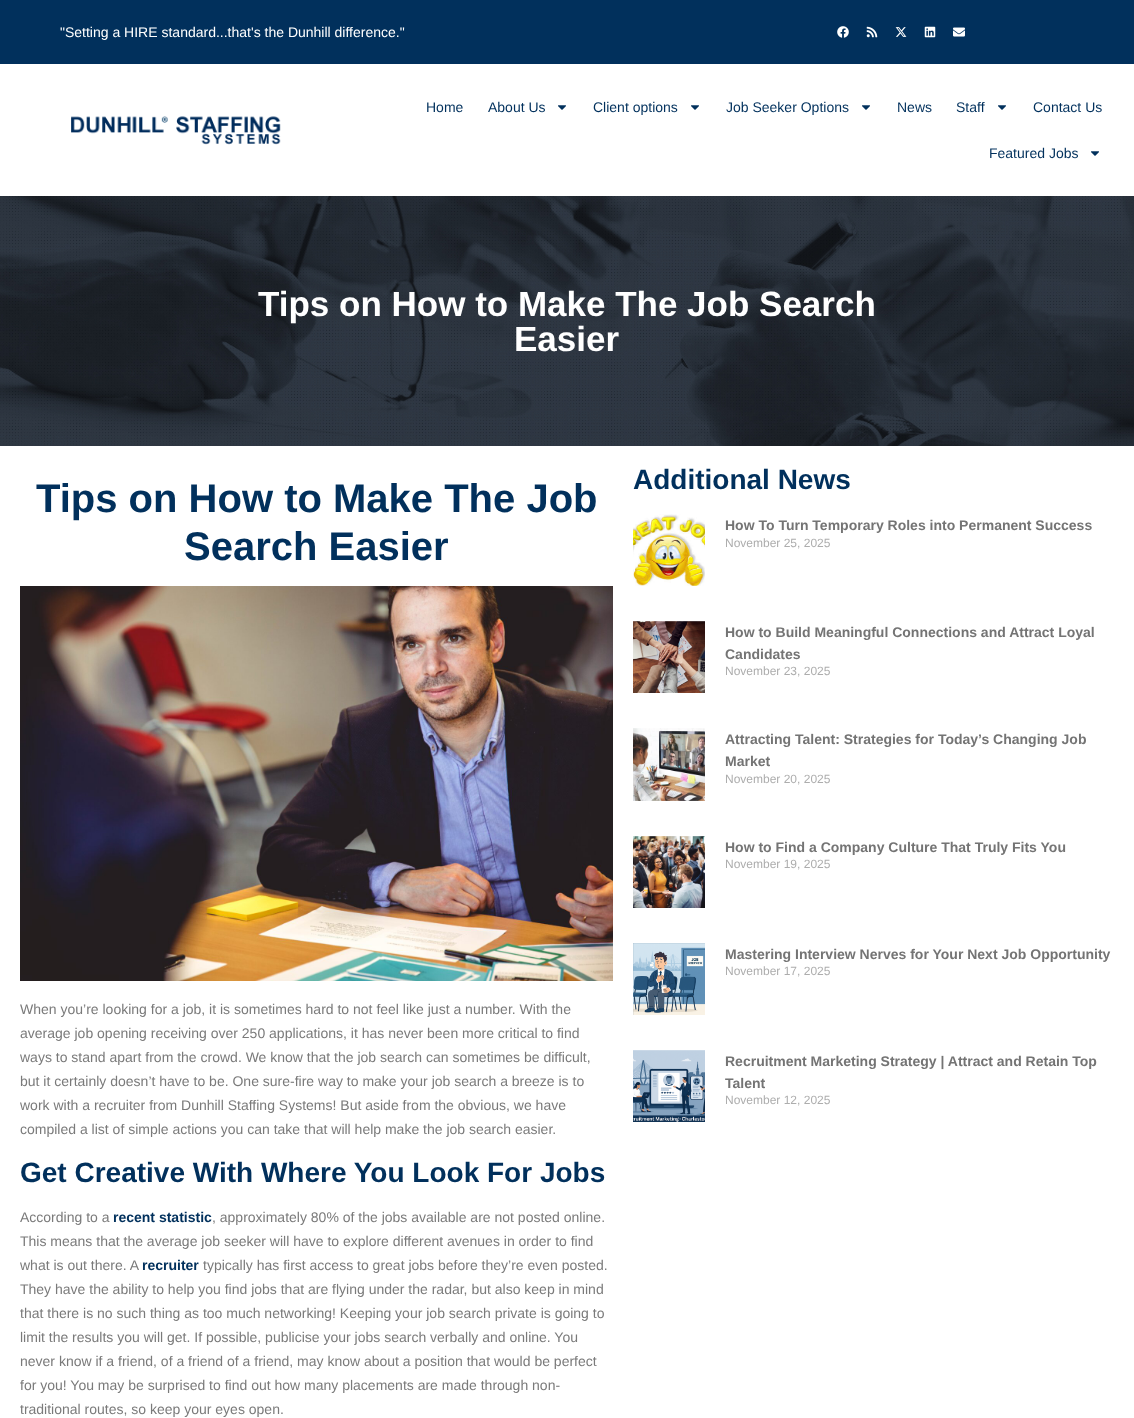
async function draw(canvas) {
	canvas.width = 1134;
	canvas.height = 1418;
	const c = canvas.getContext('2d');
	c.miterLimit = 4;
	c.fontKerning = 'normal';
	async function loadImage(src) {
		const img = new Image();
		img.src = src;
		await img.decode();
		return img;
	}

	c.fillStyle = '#fff';
	c.fillRect(0, 0, 1134, 1418);
	c.fillStyle = '#01305c';
	c.fillRect(0, 0, 1134, 64);
	c.font = '14px Liberation Sans';
	c.fillStyle = '#fff';
	c.fillText('"Setting a HIRE standard...that\'s the Dunhill difference."', 60, 37);
	c.drawImage(await loadImage('img1.png'), 837, 26, 12, 12);
	c.drawImage(await loadImage('img2.png'), 866, 26, 12, 12);
	c.drawImage(await loadImage('img3.png'), 895, 27, 12, 10);
	c.drawImage(await loadImage('img4.png'), 924, 26, 12, 12);
	c.drawImage(await loadImage('img5.png'), 953, 27, 12, 10);
	c.drawImage(await loadImage('img6.png'), 71, 116, 210, 29);
	c.fillStyle = '#01305c';
	c.fillText('Home', 426, 112);
	c.fillText('About Us', 488, 112);
	c.drawImage(await loadImage('img7.png'), 558, 105, 8, 5);
	c.fillText('Client options', 593, 112);
	c.drawImage(await loadImage('img7.png'), 691, 105, 8, 5);
	c.fillText('Job Seeker Options', 726, 112);
	c.drawImage(await loadImage('img7.png'), 862, 105, 8, 5);
	c.fillText('News', 897, 112);
	c.fillText('Staff', 956, 112);
	c.drawImage(await loadImage('img7.png'), 998, 105, 8, 5);
	c.fillText('Contact Us', 1033, 112);
	c.fillText('Featured Jobs', 989, 158);
	c.drawImage(await loadImage('img7.png'), 1091, 151, 8, 5);
	c.drawImage(await loadImage('img8.png'), 0, 196, 1134, 250);
	c.font = 'bold 35px Liberation Sans';
	c.fillStyle = '#fff';
	c.fillText('Tips on How to Make The Job Search', 258, 316);
	c.fillText('Easier', 514, 351);
	c.font = 'bold 40px Liberation Sans';
	c.fillStyle = '#01305c';
	c.fillText('Tips on How to Make The Job', 36, 512);
	c.fillText('Search Easier', 184, 560);
	c.drawImage(await loadImage('img9.png'), 20, 586, 593, 395);
	c.font = '14px Liberation Sans';
	c.fillStyle = '#7a7a7a';
	for (const [text, x, y] of [
		['When you’re looking for a job, it is sometimes hard to not feel like just a number. With the', 20, 1014],
		['average job opening receiving over 250 applications, it has never been more critical to find', 20, 1038],
		['ways to stand apart from the crowd. We know that the job search can sometimes be difficult,', 20, 1062],
		['but it certainly doesn’t have to be. One sure-fire way to make your job search a breeze is to', 20, 1086],
		['work with a recruiter from Dunhill Staffing Systems! But aside from the obvious, we have', 20, 1110],
		['compiled a list of simple actions you can take that will help make the job search easier.', 20, 1134],
	]) {
		c.fillText(text, x, y);
	}
	c.font = 'bold 28px Liberation Sans';
	c.fillStyle = '#01305c';
	c.fillText('Get Creative With Where You Look For Jobs', 20, 1182);
	c.font = '14px Liberation Sans';
	c.fillStyle = '#7a7a7a';
	c.fillText('According to a', 20, 1222);
	c.font = 'bold 14px Liberation Sans';
	c.fillStyle = '#01305c';
	c.fillText('recent statistic', 113, 1222);
	c.font = '14px Liberation Sans';
	c.fillStyle = '#7a7a7a';
	for (const [text, x, y] of [
		[', approximately 80% of the jobs available are not posted online.', 212, 1222],
		['This means that the average job seeker will have to explore different avenues in order to find', 20, 1246],
		['what is out there. A', 20, 1270],
	]) {
		c.fillText(text, x, y);
	}
	c.font = 'bold 14px Liberation Sans';
	c.fillStyle = '#01305c';
	c.fillText('recruiter', 142, 1270);
	c.font = '14px Liberation Sans';
	c.fillStyle = '#7a7a7a';
	for (const [text, x, y] of [
		['typically has first access to great jobs before they’re even posted.', 203, 1270],
		['They have the ability to help you find jobs that are flying under the radar, but also keep in mind', 20, 1294],
		['that there is no such thing as too much networking! Keeping your job search private is going to', 20, 1318],
		['limit the results you will get. If possible, publicise your jobs search verbally and online. You', 20, 1342],
		['never know if a friend, of a friend of a friend, may know about a position that would be perfect', 20, 1366],
		['for you! You may be surprised to find out how many placements are made through non-', 20, 1390],
		['traditional routes, so keep your eyes open.', 20, 1414],
	]) {
		c.fillText(text, x, y);
	}
	c.font = 'bold 28px Liberation Sans';
	c.fillStyle = '#01305c';
	c.fillText('Additional News', 633, 489);
	c.drawImage(await loadImage('img10.png'), 633, 514, 72, 72);
	c.font = 'bold 14px Liberation Sans';
	c.fillStyle = '#747474';
	c.fillText('How To Turn Temporary Roles into Permanent Success', 725, 530);
	c.font = '12px Liberation Sans';
	c.fillStyle = '#adadad';
	c.fillText('November 25, 2025', 725, 547);
	c.drawImage(await loadImage('img11.png'), 633, 621, 72, 72);
	c.font = 'bold 14px Liberation Sans';
	c.fillStyle = '#747474';
	c.fillText('How to Build Meaningful Connections and Attract Loyal', 725, 637);
	c.fillText('Candidates', 725, 659);
	c.font = '12px Liberation Sans';
	c.fillStyle = '#adadad';
	c.fillText('November 23, 2025', 725, 675);
	c.drawImage(await loadImage('img12.png'), 633, 728, 72, 73);
	c.font = 'bold 14px Liberation Sans';
	c.fillStyle = '#747474';
	c.fillText('Attracting Talent: Strategies for Today’s Changing Job', 725, 744);
	c.fillText('Market', 725, 766);
	c.font = '12px Liberation Sans';
	c.fillStyle = '#adadad';
	c.fillText('November 20, 2025', 725, 783);
	c.drawImage(await loadImage('img13.png'), 633, 836, 72, 72);
	c.font = 'bold 14px Liberation Sans';
	c.fillStyle = '#747474';
	c.fillText('How to Find a Company Culture That Truly Fits You', 725, 852);
	c.font = '12px Liberation Sans';
	c.fillStyle = '#adadad';
	c.fillText('November 19, 2025', 725, 868);
	c.fillStyle = '#8ea6b8';
	c.fillRect(633, 943, 72, 72);
	c.drawImage(await loadImage('img14.png'), 633, 943, 72, 72);
	c.font = 'bold 14px Liberation Sans';
	c.fillStyle = '#747474';
	c.fillText('Mastering Interview Nerves for Your Next Job Opportunity', 725, 959);
	c.font = '12px Liberation Sans';
	c.fillStyle = '#adadad';
	c.fillText('November 17, 2025', 725, 975);
	c.drawImage(await loadImage('img15.png'), 633, 1050, 72, 72);
	c.font = 'bold 14px Liberation Sans';
	c.fillStyle = '#747474';
	c.fillText('Recruitment Marketing Strategy | Attract and Retain Top', 725, 1066);
	c.fillText('Talent', 725, 1088);
	c.font = '12px Liberation Sans';
	c.fillStyle = '#adadad';
	c.fillText('November 12, 2025', 725, 1104);
}

draw(document.querySelector('canvas'));
